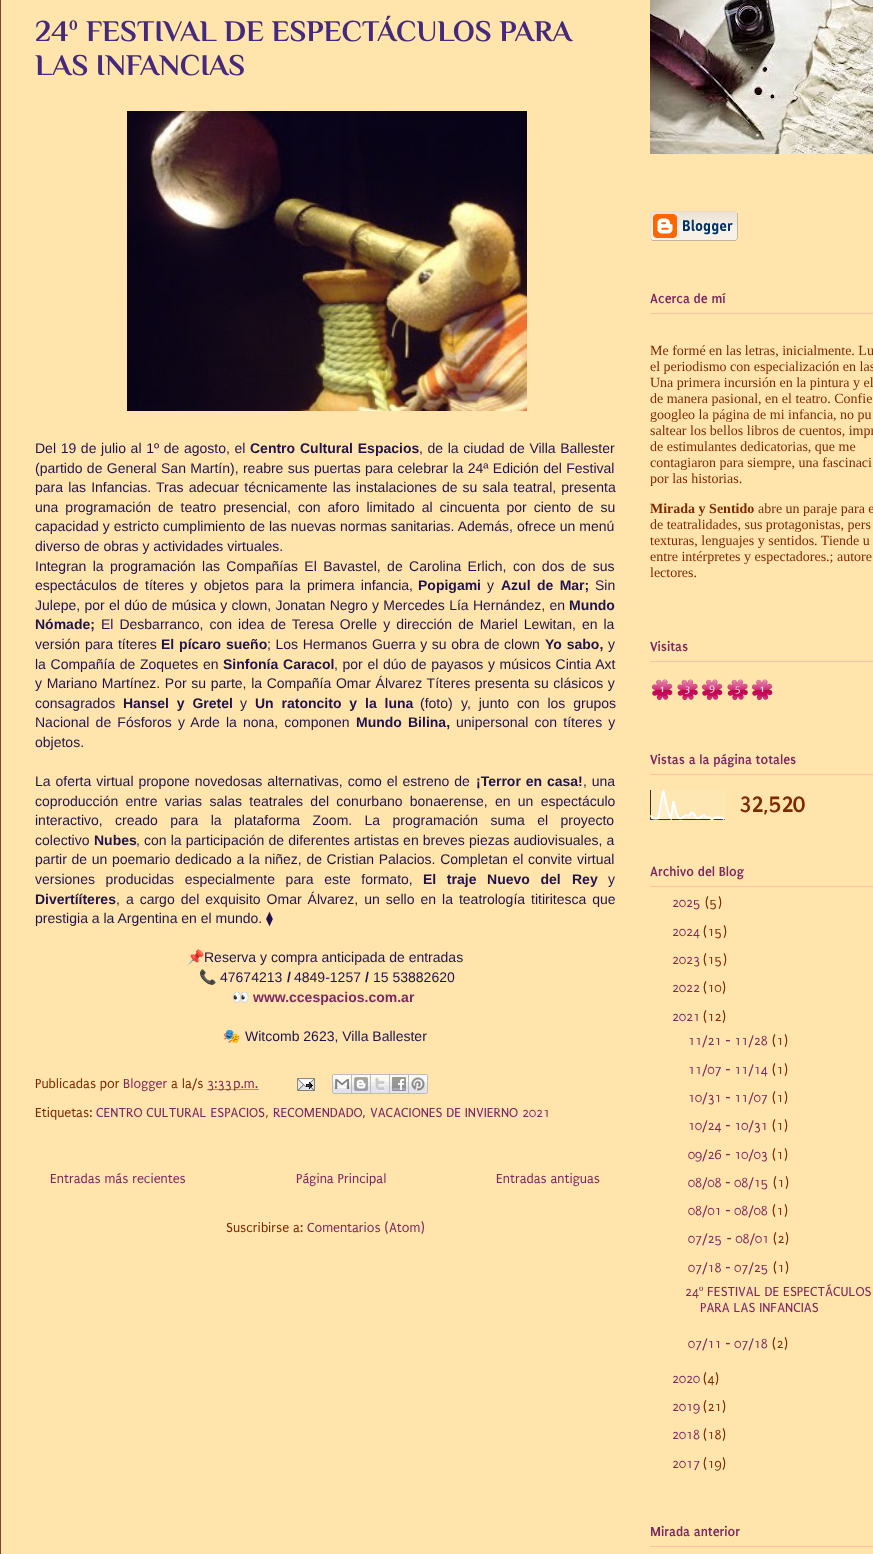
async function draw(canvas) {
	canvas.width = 873;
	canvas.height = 1554;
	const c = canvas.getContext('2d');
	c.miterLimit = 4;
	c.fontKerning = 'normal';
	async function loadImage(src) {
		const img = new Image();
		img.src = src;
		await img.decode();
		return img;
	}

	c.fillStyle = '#ffe5ac';
	c.fillRect(0, 0, 873, 1554);
	c.fillStyle = '#7d462a';
	c.fillRect(0, 0, 1, 1554);
	c.font = 'bold 30px Philosopher';
	c.fillStyle = '#45297d';
	c.fillText('24º FESTIVAL DE ESPECTÁCULOS PARA', 35, 41);
	c.fillText('LAS INFANCIAS', 35, 75);
	c.drawImage(await loadImage('img1.png'), 127, 111, 400, 300);
	c.wordSpacing = '0.75px';
	c.font = '14px Liberation Sans';
	c.fillStyle = '#20124d';
	c.fillText('Del 19 de julio al 1º de agosto, el', 35, 453);
	c.wordSpacing = '1px';
	c.font = 'bold 14px Liberation Sans';
	c.fillText('Centro Cultural Espacios', 250, 453);
	c.wordSpacing = '0.75px';
	c.font = '14px Liberation Sans';
	c.fillText(', de la ciudad de Villa Ballester', 419, 453);
	c.wordSpacing = '0.5px';
	c.fillText('(partido de General San Martín), reabre sus puertas para celebrar la 24ª Edición del Festival', 35, 473);
	c.wordSpacing = '1.25px';
	c.fillText('para las Infancias. Tras adecuar técnicamente las instalaciones de su sala teatral, presenta', 35, 492);
	c.wordSpacing = '3.1px';
	c.fillText('una programación de teatro presencial, con aforo limitado al cincuenta por ciento de su', 35, 512);
	c.wordSpacing = '0.1px';
	c.fillText('capacidad y estricto cumplimiento de las nuevas normas sanitarias. Además, ofrece un menú', 35, 531);
	c.wordSpacing = '0px';
	c.fillText('diverso de obras y actividades virtuales.', 35, 551);
	c.wordSpacing = '2.5px';
	c.fillText('Integran la programación las Compañías El Bavastel, de Carolina Erlich, con dos de sus', 35, 571);
	c.fillText('espectáculos de títeres y objetos para la primera infancia,', 35, 590);
	c.wordSpacing = '0px';
	c.font = 'bold 14px Liberation Sans';
	c.fillText('Popigami', 418, 590);
	c.font = '14px Liberation Sans';
	c.fillText('y', 487, 590);
	c.wordSpacing = '2.5px';
	c.font = 'bold 14px Liberation Sans';
	c.fillText('Azul de Mar;', 501, 590);
	c.wordSpacing = '0px';
	c.font = '14px Liberation Sans';
	c.fillText('Sin', 595, 590);
	c.wordSpacing = '0.4px';
	c.fillText('Julepe, por el dúo de música y clown, Jonatan Negro y Mercedes Lía Hernández, en', 35, 610);
	c.wordSpacing = '0px';
	c.font = 'bold 14px Liberation Sans';
	c.fillText('Mundo', 569, 610);
	c.fillText('Nómade;', 35, 629);
	c.wordSpacing = '2.1px';
	c.font = '14px Liberation Sans';
	c.fillText('El Desbarranco, con idea de Teresa Orelle y dirección de Mariel Lewitan, en la', 101, 629);
	c.wordSpacing = '1px';
	c.fillText('versión para títeres', 35, 649);
	c.font = 'bold 14px Liberation Sans';
	c.fillText('El pícaro', 161, 649);
	c.wordSpacing = '0px';
	c.fillText('sueño', 226, 649);
	c.wordSpacing = '0.75px';
	c.font = '14px Liberation Sans';
	c.fillText('; Los Hermanos Guerra y su obra de clown', 267, 649);
	c.wordSpacing = '1px';
	c.font = 'bold 14px Liberation Sans';
	c.fillText('Yo sabo,', 545, 649);
	c.wordSpacing = '0px';
	c.font = '14px Liberation Sans';
	c.fillText('y', 608, 649);
	c.wordSpacing = '0.75px';
	c.fillText('la Compañía de Zoquetes en', 35, 669);
	c.wordSpacing = '1px';
	c.font = 'bold 14px Liberation Sans';
	c.fillText('Sinfonía Caracol', 223, 669);
	c.wordSpacing = '0.75px';
	c.font = '14px Liberation Sans';
	c.fillText(', por el dúo de payasos y músicos Cintia Axt', 334, 669);
	c.fillText('y Mariano Martínez. Por su parte, la Compañía Omar Álvarez Títeres presenta su clásicos y', 35, 688);
	c.wordSpacing = '0px';
	c.fillText('consagrados', 35, 708);
	c.wordSpacing = '4px';
	c.font = 'bold 14px Liberation Sans';
	c.fillText('Hansel y Gretel', 123, 708);
	c.wordSpacing = '0px';
	c.font = '14px Liberation Sans';
	c.fillText('y', 240, 708);
	c.wordSpacing = '4px';
	c.font = 'bold 14px Liberation Sans';
	c.fillText('Un ratoncito y la luna', 255, 708);
	c.wordSpacing = '0px';
	c.font = '14px Liberation Sans';
	c.fillText('(foto)', 420, 708);
	c.wordSpacing = '4px';
	c.fillText('y, junto con los grupos', 461, 708);
	c.wordSpacing = '2.25px';
	c.fillText('Nacional de Fósforos y Arde la nona, componen', 35, 727);
	c.font = 'bold 14px Liberation Sans';
	c.fillText('Mundo Bilina,', 356, 727);
	c.font = '14px Liberation Sans';
	c.fillText('unipersonal con títeres y', 456, 727);
	c.wordSpacing = '0px';
	c.fillText('objetos.', 35, 747);
	c.wordSpacing = '1px';
	c.fillText('La oferta virtual propone novedosas alternativas, como el estreno de', 35, 786);
	c.font = 'bold 14px Liberation Sans';
	c.fillText('¡Terror en casa!', 476, 786);
	c.font = '14px Liberation Sans';
	c.fillText(', una', 583, 786);
	c.wordSpacing = '3.4px';
	c.fillText('coproducción entre varias salas teatrales del conurbano bonaerense, en un espectáculo', 35, 806);
	c.wordSpacing = '8.5px';
	c.fillText('interactivo, creado para la plataforma Zoom. La programación suma el proyecto', 35, 825);
	c.wordSpacing = '0px';
	c.fillText('colectivo', 35, 845);
	c.font = 'bold 14px Liberation Sans';
	c.fillText('Nubes', 94, 845);
	c.wordSpacing = '0.25px';
	c.font = '14px Liberation Sans';
	c.fillText(', con la participación de diferentes artistas en breves piezas audiovisuales, a', 136, 845);
	c.wordSpacing = '0.75px';
	c.fillText('partir de un poemario dedicado a la niñez, de Cristian Palacios. Completan el convite virtual', 35, 864);
	c.wordSpacing = '6.75px';
	c.fillText('versiones producidas especialmente para este formato,', 35, 884);
	c.font = 'bold 14px Liberation Sans';
	c.fillText('El traje Nuevo del', 423, 884);
	c.wordSpacing = '0px';
	c.fillText('Rey', 572, 884);
	c.font = '14px Liberation Sans';
	c.fillText('y', 608, 884);
	c.font = 'bold 14px Liberation Sans';
	c.fillText('Divertííteres', 35, 904);
	c.wordSpacing = '2.1px';
	c.font = '14px Liberation Sans';
	c.fillText(', a cargo del exquisito Omar Álvarez, un sello en la teatrología titiritesca que', 116, 904);
	c.wordSpacing = '0px';
	c.fillText('prestigia a la Argentina en el mundo.', 35, 923);
	c.font = '14px DejaVu Sans';
	c.fillText('⧫', 266, 923);
	c.font = '14px Noto Color Emoji';
	c.fillText('📌', 187, 962);
	c.font = '14px Liberation Sans';
	c.fillText('Reserva y compra anticipada de entradas', 204, 962);
	c.font = '14px Noto Color Emoji';
	c.fillText('📞', 199, 982);
	c.font = '14px Liberation Sans';
	c.fillText('47674213', 220, 982);
	c.font = 'bold 14px Liberation Sans';
	c.fillText('/', 287, 982);
	c.font = '14px Liberation Sans';
	c.fillText('4849-1257', 294, 982);
	c.font = 'bold 14px Liberation Sans';
	c.fillText('/', 365, 982);
	c.font = '14px Liberation Sans';
	c.fillText('15 53882620', 373, 982);
	c.font = '14px Noto Color Emoji';
	c.fillText('👀', 232, 1002);
	c.font = 'bold 14px Liberation Sans';
	c.fillStyle = '#7d2961';
	c.fillText('www.ccespacios.com.ar', 253, 1002);
	c.font = '14px Noto Color Emoji';
	c.fillStyle = '#20124d';
	c.fillText('🎭', 223, 1041);
	c.font = '14px Liberation Sans';
	c.fillText('Witcomb 2623, Villa Ballester', 245, 1041);
	c.font = '14px Puritan';
	c.fillStyle = '#7d2a00';
	c.fillText('Publicadas por', 35, 1088);
	c.fillStyle = '#7d2961';
	c.fillText('Blogger', 123, 1088);
	c.fillStyle = '#7d2a00';
	c.fillText('a la/s', 171, 1088);
	c.beginPath();
	c.moveTo(207.5, 1089.5);
	c.lineTo(258.5, 1089.5);
	c.strokeStyle = '#7d2961';
	c.setLineDash([1, 1]);
	c.stroke();
	c.fillStyle = '#7d2961';
	c.fillText('3:33 p.m.', 207, 1088);
	c.drawImage(await loadImage('img2.png'), 297, 1078, 18, 13);
	c.drawImage(await loadImage('img3.png'), 332, 1074, 20, 20);
	c.drawImage(await loadImage('img4.png'), 352, 1074, 19, 20);
	c.drawImage(await loadImage('img5.png'), 371, 1074, 19, 20);
	c.drawImage(await loadImage('img6.png'), 390, 1074, 19, 20);
	c.drawImage(await loadImage('img7.png'), 409, 1074, 19, 20);
	c.fillStyle = '#7d2a00';
	c.fillText('Etiquetas:', 35, 1117);
	c.fillStyle = '#7d2961';
	c.fillText('CENTRO CULTURAL ESPACIOS', 96, 1117);
	c.fillStyle = '#7d2a00';
	c.fillText(',', 265, 1117);
	c.fillStyle = '#7d2961';
	c.fillText('RECOMENDADO', 273, 1117);
	c.fillStyle = '#7d2a00';
	c.fillText(',', 362, 1117);
	c.fillStyle = '#7d2961';
	for (const [text, x, y] of [
		['VACACIONES DE INVIERNO 2021', 370, 1117],
		['Entradas más recientes', 50, 1183],
		['Página Principal', 296, 1183],
		['Entradas antiguas', 496, 1183],
	]) {
		c.fillText(text, x, y);
	}
	c.fillStyle = '#7d2a00';
	c.fillText('Suscribirse a:', 226, 1232);
	c.fillStyle = '#7d2961';
	c.fillText('Comentarios (Atom)', 307, 1232);
	c.drawImage(await loadImage('img8.png'), 650, 0, 223, 154);
	c.drawImage(await loadImage('img9.png'), 650, 211, 88, 30);
	c.fillStyle = '#fbc4a8';
	c.fillRect(650, 313, 223, 1);
	c.font = 'bold 14px Puritan';
	c.fillStyle = '#7d2961';
	c.fillText('Acerca de mí', 650, 303);
	c.font = '14px Liberation Serif';
	c.fillStyle = '#7d2a00';
	for (const [text, x, y] of [
		['Me formé en las letras, inicialmente. Lu', 650, 355],
		['el periodismo con especialización en las', 650, 371],
		['Una primera incursión en la pintura y el', 650, 387],
		['de manera pasional, en el teatro. Confie', 650, 403],
		['googleo la página de mi infancia, no pu', 650, 419],
		['saltear los bellos libros de cuentos, impr', 650, 435],
		['de estimulantes dedicatorias, que me', 650, 451],
		['contagiaron para siempre, una fascinaci', 650, 467],
		['por las historias.', 650, 483],
	]) {
		c.fillText(text, x, y);
	}
	c.font = 'bold 14px Liberation Serif';
	c.fillText('Mirada y Sentido', 650, 513);
	c.font = '14px Liberation Serif';
	for (const [text, x, y] of [
		['abre un paraje para e', 758, 513],
		['de teatralidades, sus protagonistas, pers', 650, 529],
		['texturas, lenguajes y sentidos. Tiende u', 650, 545],
		['entre intérpretes y espectadores.; autore', 650, 561],
		['lectores.', 650, 577],
	]) {
		c.fillText(text, x, y);
	}
	c.fillStyle = '#fbc4a8';
	c.fillRect(650, 661, 223, 1);
	c.font = 'bold 14px Puritan';
	c.fillStyle = '#7d2961';
	c.fillText('Visitas', 650, 651);
	c.drawImage(await loadImage('img10.png'), 651, 679, 122, 21);
	c.fillStyle = '#fbc4a8';
	c.fillRect(650, 774, 223, 1);
	c.fillStyle = '#7d2961';
	c.fillText('Vistas a la página totales', 650, 764);
	c.drawImage(await loadImage('img11.png'), 650, 790, 75, 30);
	c.font = 'bold 24px Puritan';
	c.fillStyle = '#7d2a00';
	c.fillText('32,520', 739, 812);
	c.fillStyle = '#fbc4a8';
	c.fillRect(650, 886, 223, 1);
	c.font = 'bold 14px Puritan';
	c.fillStyle = '#7d2961';
	c.fillText('Archivo del Blog', 650, 876);
	c.font = '14px Puritan';
	c.fillText('2025', 672, 907);
	c.fillStyle = '#7d2a00';
	c.fillText('(5)', 705, 907);
	c.fillStyle = '#7d2961';
	c.fillText('2024', 672, 936);
	c.fillStyle = '#7d2a00';
	c.fillText('(15)', 703, 936);
	c.fillStyle = '#7d2961';
	c.fillText('2023', 672, 964);
	c.fillStyle = '#7d2a00';
	c.fillText('(15)', 703, 964);
	c.fillStyle = '#7d2961';
	c.fillText('2022', 672, 992);
	c.fillStyle = '#7d2a00';
	c.fillText('(10)', 703, 992);
	c.fillStyle = '#7d2961';
	c.fillText('2021', 672, 1021);
	c.fillStyle = '#7d2a00';
	c.fillText('(12)', 703, 1021);
	c.fillStyle = '#7d2961';
	c.fillText('11/21 - 11/28', 688, 1045);
	c.fillStyle = '#7d2a00';
	c.fillText('(1)', 772, 1045);
	c.fillStyle = '#7d2961';
	c.fillText('11/07 - 11/14', 688, 1074);
	c.fillStyle = '#7d2a00';
	c.fillText('(1)', 772, 1074);
	c.fillStyle = '#7d2961';
	c.fillText('10/31 - 11/07', 688, 1102);
	c.fillStyle = '#7d2a00';
	c.fillText('(1)', 772, 1102);
	c.fillStyle = '#7d2961';
	c.fillText('10/24 - 10/31', 688, 1130);
	c.fillStyle = '#7d2a00';
	c.fillText('(1)', 772, 1130);
	c.fillStyle = '#7d2961';
	c.fillText('09/26 - 10/03', 688, 1159);
	c.fillStyle = '#7d2a00';
	c.fillText('(1)', 772, 1159);
	c.fillStyle = '#7d2961';
	c.fillText('08/08 - 08/15', 688, 1187);
	c.fillStyle = '#7d2a00';
	c.fillText('(1)', 773, 1187);
	c.fillStyle = '#7d2961';
	c.fillText('08/01 - 08/08', 688, 1215);
	c.fillStyle = '#7d2a00';
	c.fillText('(1)', 772, 1215);
	c.fillStyle = '#7d2961';
	c.fillText('07/25 - 08/01', 688, 1243);
	c.fillStyle = '#7d2a00';
	c.fillText('(2)', 773, 1243);
	c.fillStyle = '#7d2961';
	c.fillText('07/18 - 07/25', 688, 1272);
	c.fillStyle = '#7d2a00';
	c.fillText('(1)', 773, 1272);
	c.fillStyle = '#7d2961';
	c.fillText('24', 685, 1296);
	c.font = '14px Liberation Serif';
	c.fillText('º', 699, 1296);
	c.font = '14px Puritan';
	for (const [text, x, y] of [
		['FESTIVAL DE ESPECTÁCULOS', 707, 1296],
		['PARA LAS INFANCIAS', 700, 1312],
		['07/11 - 07/18', 688, 1348],
	]) {
		c.fillText(text, x, y);
	}
	c.fillStyle = '#7d2a00';
	c.fillText('(2)', 772, 1348);
	c.fillStyle = '#7d2961';
	c.fillText('2020', 672, 1383);
	c.fillStyle = '#7d2a00';
	c.fillText('(4)', 703, 1383);
	c.fillStyle = '#7d2961';
	c.fillText('2019', 672, 1411);
	c.fillStyle = '#7d2a00';
	c.fillText('(21)', 703, 1411);
	c.fillStyle = '#7d2961';
	c.fillText('2018', 672, 1439);
	c.fillStyle = '#7d2a00';
	c.fillText('(18)', 703, 1439);
	c.fillStyle = '#7d2961';
	c.fillText('2017', 672, 1468);
	c.fillStyle = '#7d2a00';
	c.fillText('(19)', 703, 1468);
	c.fillStyle = '#fbc4a8';
	c.fillRect(650, 1546, 223, 1);
	c.font = 'bold 14px Puritan';
	c.fillStyle = '#7d2961';
	c.fillText('Mirada anterior', 650, 1536);
}

draw(document.querySelector('canvas'));
